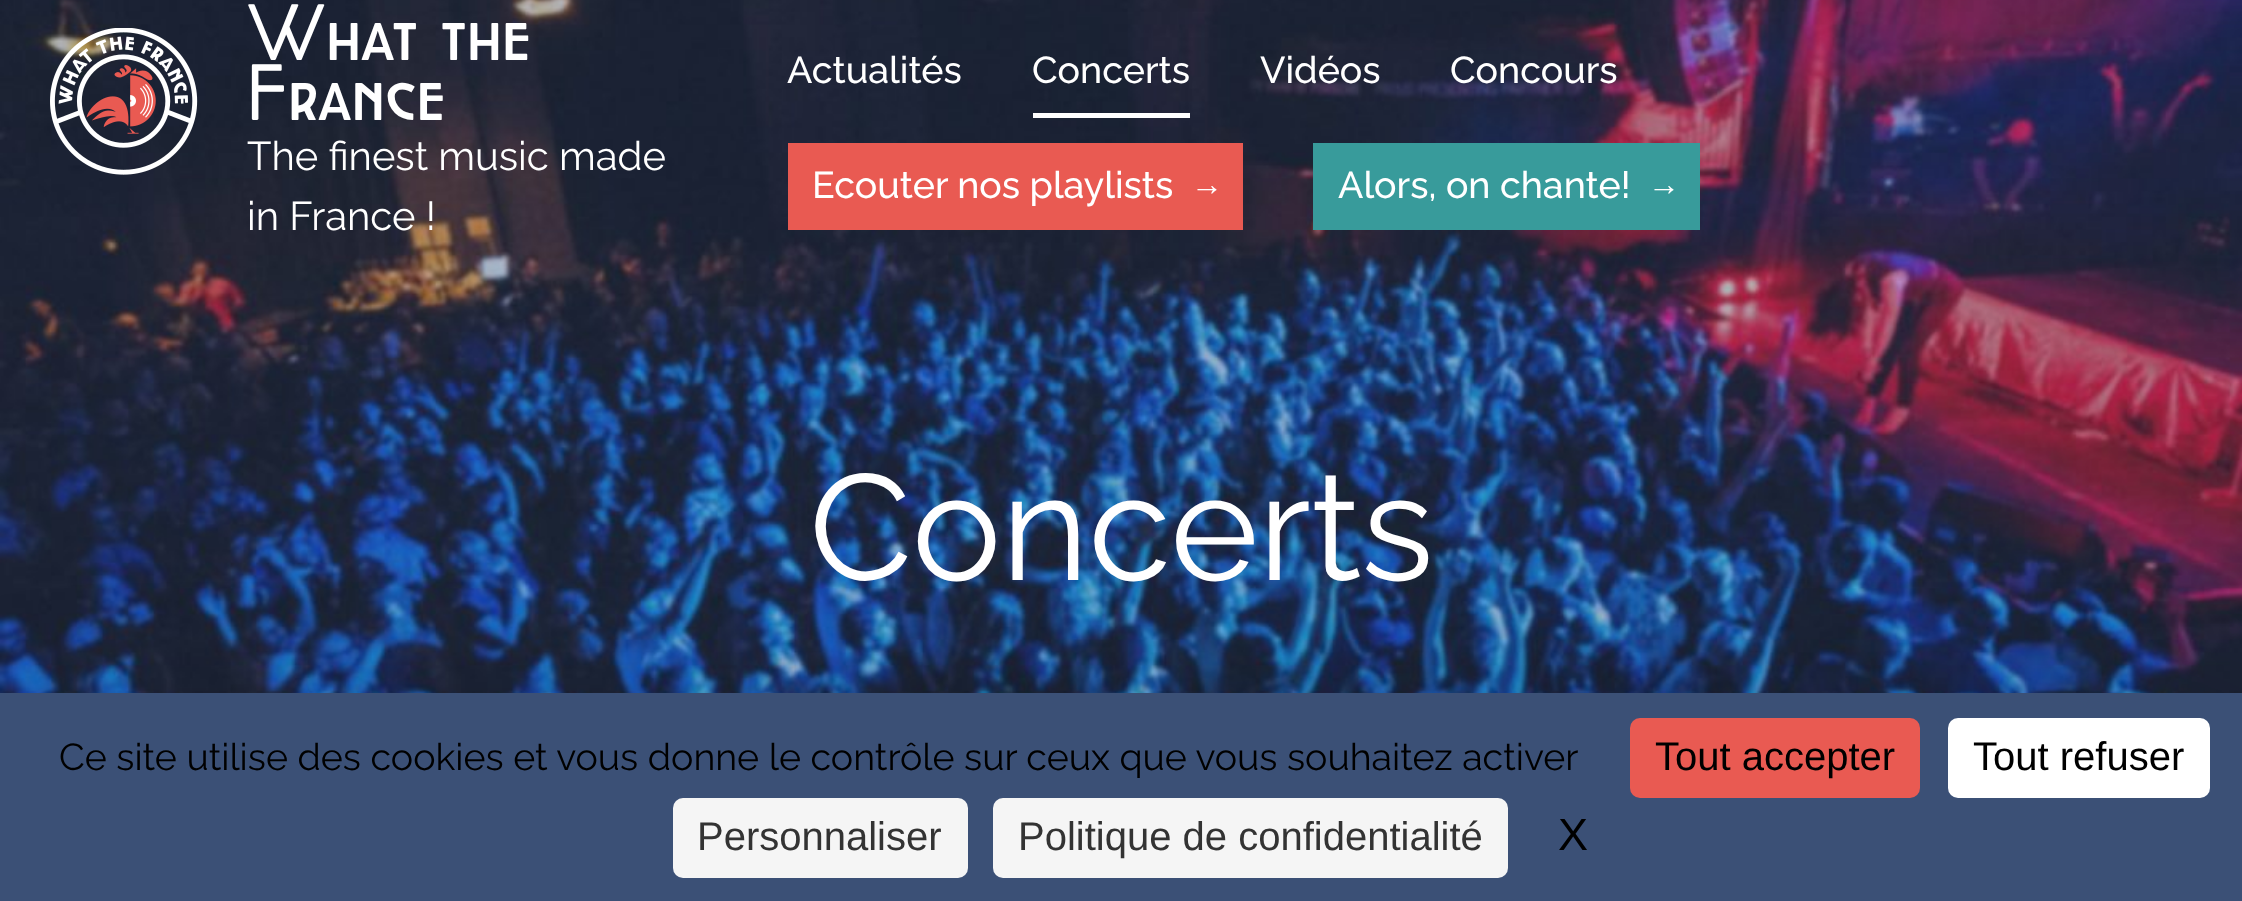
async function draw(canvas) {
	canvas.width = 2242;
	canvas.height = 901;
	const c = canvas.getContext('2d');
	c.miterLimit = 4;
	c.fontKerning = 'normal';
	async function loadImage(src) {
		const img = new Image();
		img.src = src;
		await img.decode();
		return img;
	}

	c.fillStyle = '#fff';
	c.fillRect(0, 0, 2242, 901);
	c.drawImage(await loadImage('img1.png'), 0, 0, 2242, 693);
	c.drawImage(await loadImage('img2.png'), 50, 28, 148, 147);
	c.font = '75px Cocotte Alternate';
	c.fillText('What the', 247, 60);
	c.fillText('France', 247, 120);
	c.font = '40px Raleway';
	c.fillText('The finest music made', 247, 170);
	c.fillText('in France !', 247, 230);
	c.font = '500 37.5px Raleway';
	c.fillText('Actualités', 787, 83);
	c.fillText('Concerts', 1032, 83);
	c.fillRect(1033, 113, 157, 5);
	c.fillText('Vidéos', 1260, 83);
	c.fillText('Concours', 1450, 83);
	c.fillStyle = '#e95a52';
	c.fillRect(788, 143, 455, 87);
	c.fillStyle = '#fff';
	c.fillText('Ecouter nos playlists', 812, 198);
	c.font = '32px Liberation Sans';
	c.fillText('→', 1191, 195);
	c.fillStyle = '#389b9b';
	c.fillRect(1313, 143, 387, 87);
	c.font = '500 37.5px Raleway';
	c.fillStyle = '#fff';
	c.fillText('Alors, on chante!', 1338, 198);
	c.font = '32px Liberation Sans';
	c.fillText('→', 1648, 195);
	c.font = '150px Raleway';
	c.fillText('Concerts', 809, 580);
	c.fillStyle = '#00000040';
	c.filter = 'blur(75px)';
	c.beginPath();
	c.rect(0, 743, 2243, 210);
	c.fill();
	c.filter = 'none';
	c.fillStyle = '#3b5076';
	c.fillRect(0, 693, 2242, 208);
	c.font = '37.5px Raleway';
	c.fillStyle = '#000';
	c.fillText('Ce site utilise des cookies et vous donne le contrôle sur ceux que vous souhaitez activer', 59, 770);
	c.fillStyle = '#e95a52';
	c.beginPath();
	c.roundRect(1630, 718, 290, 80, 10);
	c.fill();
	c.font = '40px Liberation Sans';
	c.fillStyle = '#000';
	c.fillText('Tout accepter', 1655, 770);
	c.fillStyle = '#fff';
	c.beginPath();
	c.roundRect(1948, 718, 262, 80, 10);
	c.fill();
	c.fillStyle = '#000';
	c.fillText('Tout refuser', 1973, 770);
	c.fillStyle = '#f5f5f5';
	c.beginPath();
	c.roundRect(673, 798, 295, 80, 10);
	c.fill();
	c.fillStyle = '#333';
	c.fillText('Personnaliser', 697, 850);
	c.fillStyle = '#f5f5f5';
	c.beginPath();
	c.roundRect(993, 798, 515, 80, 10);
	c.fill();
	c.fillStyle = '#333';
	c.fillText('Politique de confidentialité', 1018, 850);
	c.font = '45px Liberation Sans';
	c.fillStyle = '#000';
	c.fillText('X', 1558, 850);
}

draw(document.querySelector('canvas'));
